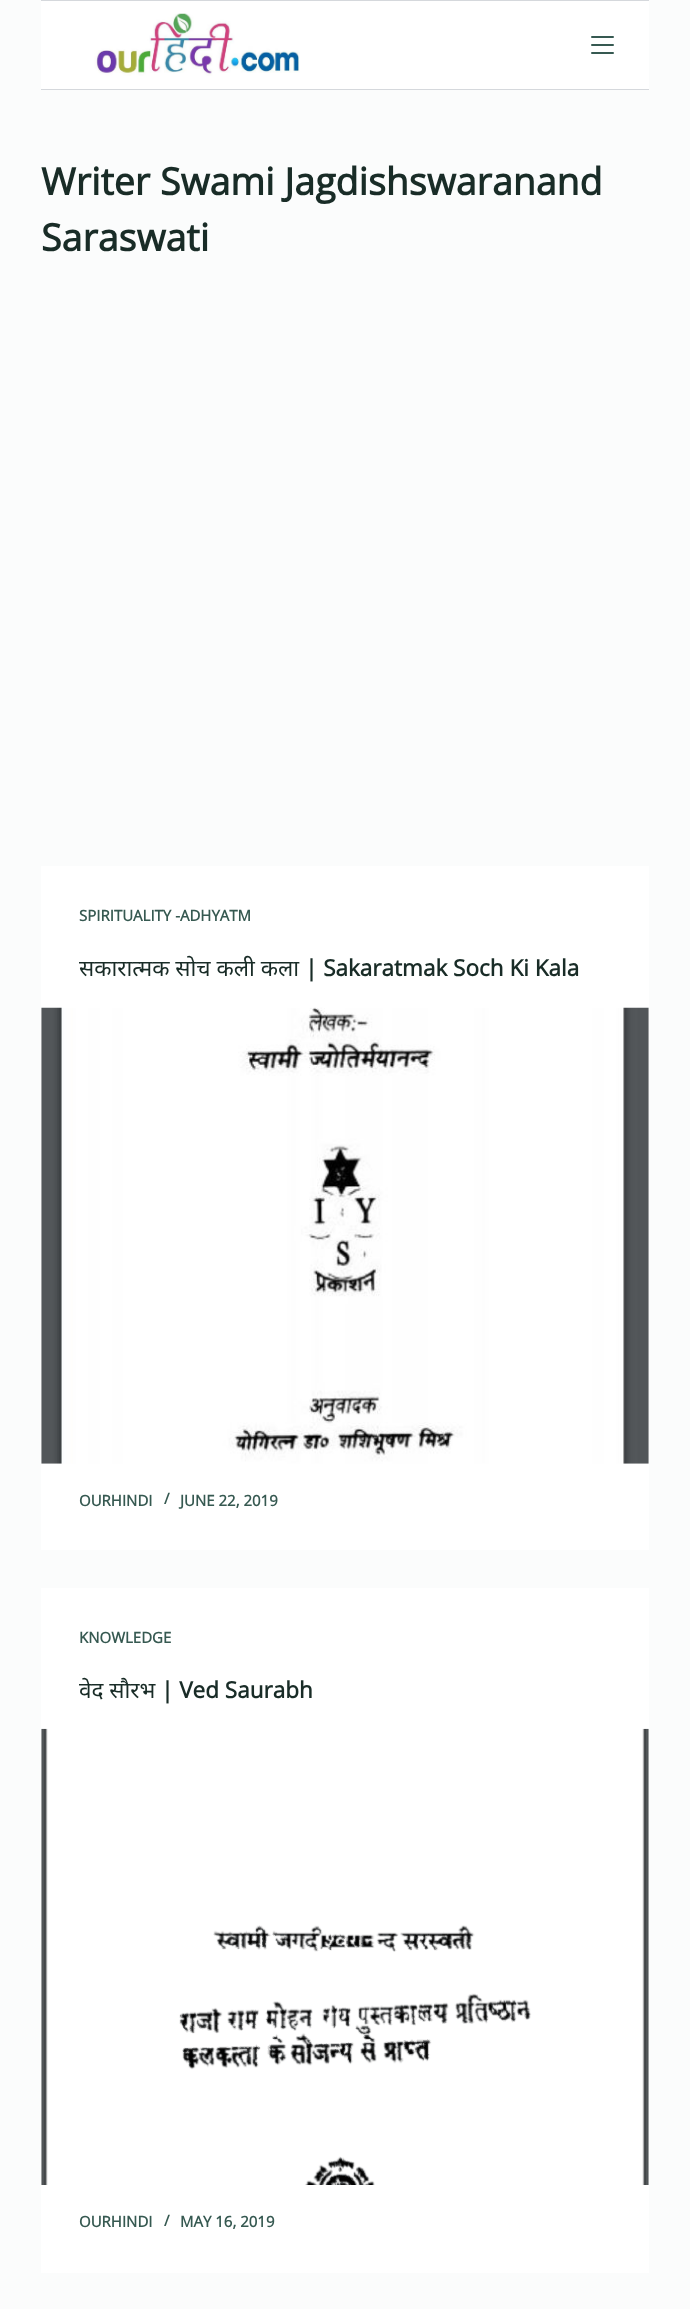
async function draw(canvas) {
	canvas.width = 690;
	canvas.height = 2309;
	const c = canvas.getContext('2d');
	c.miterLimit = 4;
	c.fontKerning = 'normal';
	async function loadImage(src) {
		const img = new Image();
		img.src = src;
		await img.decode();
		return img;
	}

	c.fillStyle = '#fbfcfc';
	c.fillRect(0, 0, 690, 2309);
	for (const [x, y, w, h, color] of [
		[41, 1, 608, 88, '#fff'],
		[41, 0, 608, 1, '#d5d8dc'],
		[41, 89, 608, 1, '#d5d8dc'],
	]) {
		c.fillStyle = color;
		c.fillRect(x, y, w, h);
	}
	c.drawImage(await loadImage('img1.png'), 94, 13, 206, 63);
	c.fillStyle = '#365951';
	c.beginPath();
	c.roundRect(591, 36, 23, 2, 1);
	c.fill();
	c.beginPath();
	c.roundRect(591, 44, 23, 2, 1);
	c.fill();
	c.beginPath();
	c.roundRect(591, 52, 23, 2, 1);
	c.fill();
	c.font = 'bold 37.5px Open Sans';
	c.fillStyle = '#192c27';
	c.fillText('Writer Swami Jagdishswaranand', 41, 195);
	c.fillText('Saraswati', 41, 251);
	c.fillStyle = '#fff';
	c.fillRect(41, 866, 608, 684);
	c.font = 'bold 15px Open Sans';
	c.fillStyle = '#365951';
	c.fillText('SPIRITUALITY -ADHYATM', 79, 921);
	c.font = '22.5px Noto Sans';
	c.fillStyle = '#192c27';
	c.fillText('सकारात्मक सोच कली कला', 79, 976);
	c.font = 'bold 22.5px Open Sans';
	c.fillText('| Sakaratmak Soch Ki Kala', 305, 976);
	c.drawImage(await loadImage('img2.png'), 41, 1007, 608, 457);
	c.font = 'bold 15px Open Sans';
	c.fillStyle = '#365951';
	for (const [text, x, y] of [
		['OURHINDI', 79, 1506],
		['/', 164, 1504],
		['JUNE 22, 2019', 180, 1506],
	]) {
		c.fillText(text, x, y);
	}
	c.fillStyle = '#fff';
	c.fillRect(41, 1588, 608, 685);
	c.fillStyle = '#365951';
	c.fillText('KNOWLEDGE', 79, 1643);
	c.font = '22.5px Noto Sans';
	c.fillStyle = '#192c27';
	c.fillText('वेद सौरभ', 79, 1698);
	c.font = 'bold 22.5px Open Sans';
	c.fillText('| Ved Saurabh', 161, 1698);
	c.drawImage(await loadImage('img3.png'), 41, 1728, 608, 457);
	c.font = 'bold 15px Open Sans';
	c.fillStyle = '#365951';
	for (const [text, x, y] of [
		['OURHINDI', 79, 2227],
		['/', 164, 2226],
		['MAY 16, 2019', 180, 2227],
	]) {
		c.fillText(text, x, y);
	}
}

draw(document.querySelector('canvas'));
